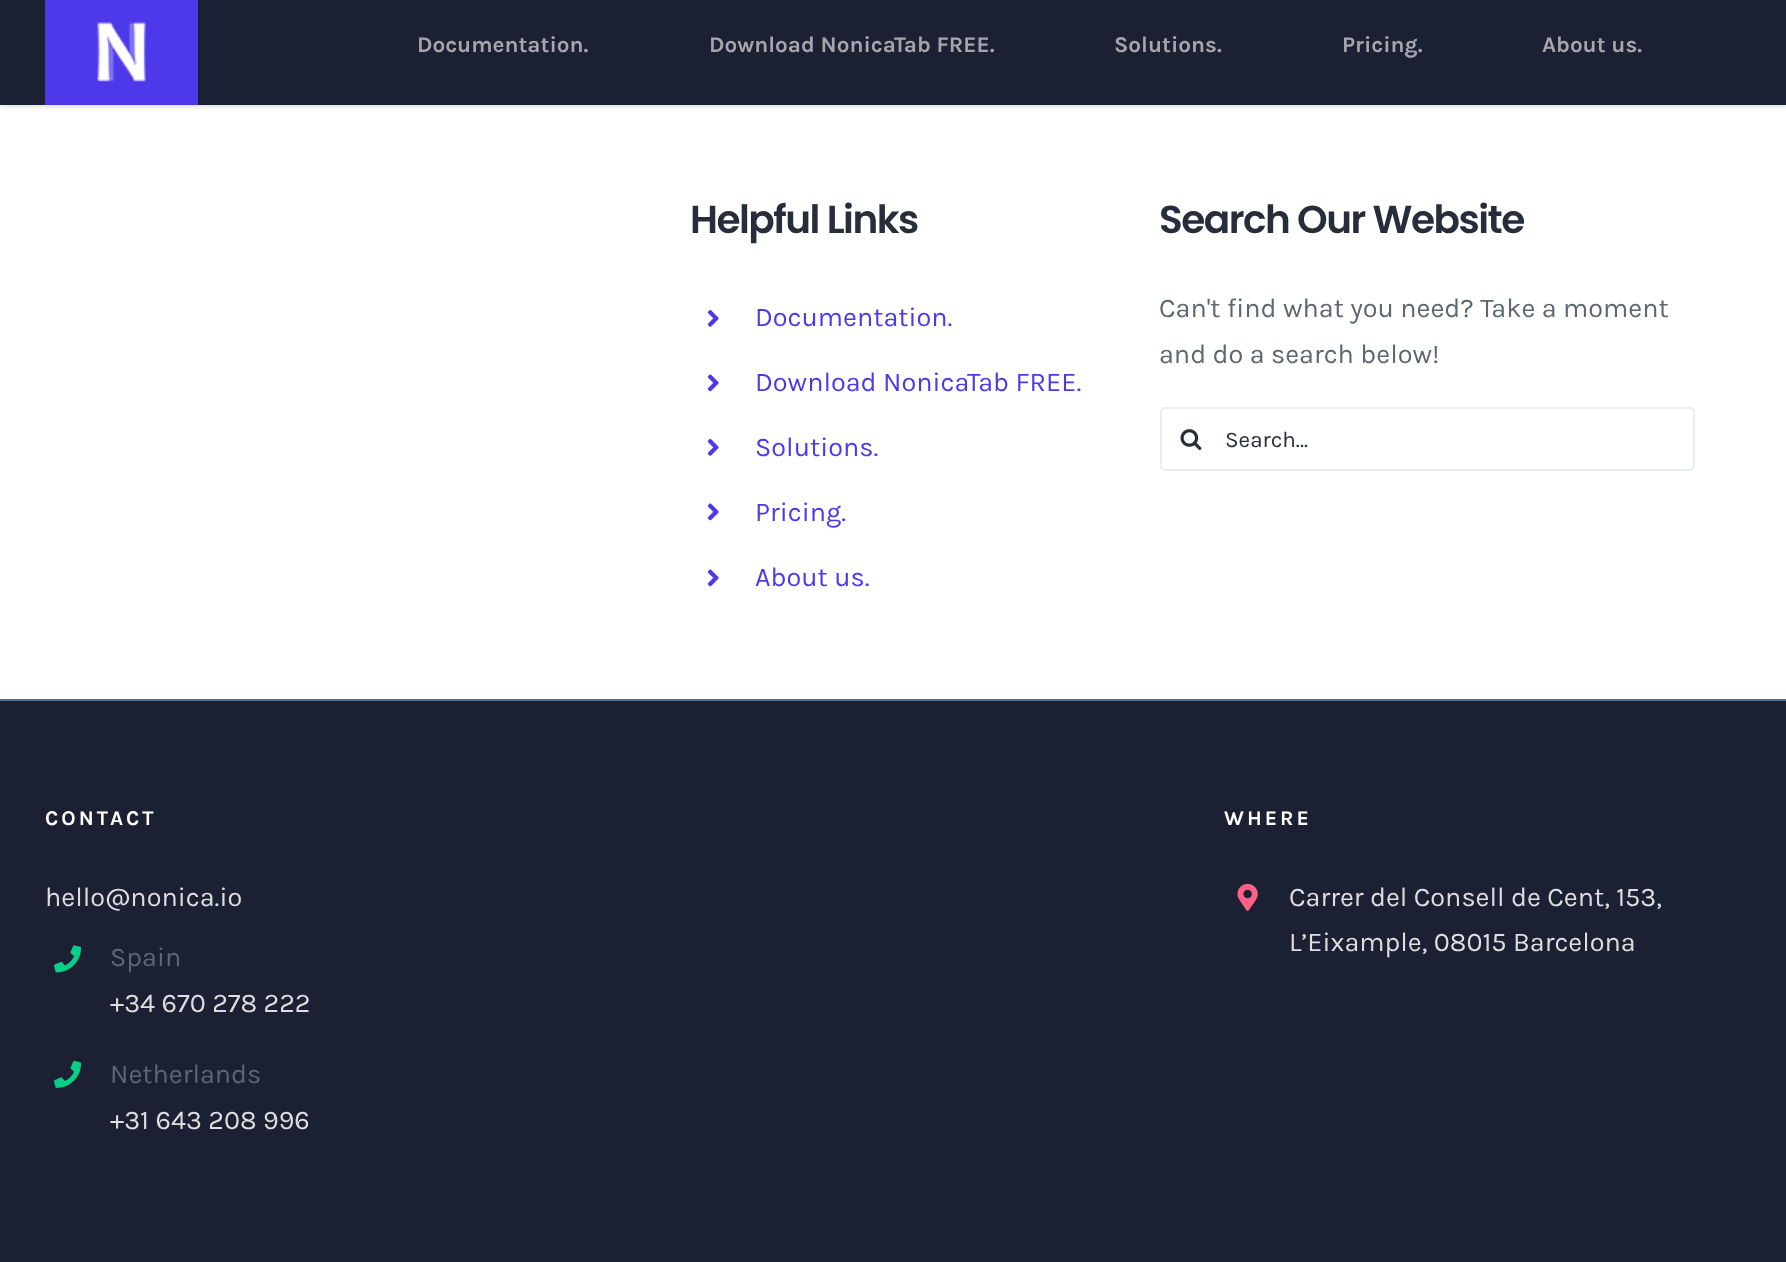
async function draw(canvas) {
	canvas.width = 1786;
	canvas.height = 1262;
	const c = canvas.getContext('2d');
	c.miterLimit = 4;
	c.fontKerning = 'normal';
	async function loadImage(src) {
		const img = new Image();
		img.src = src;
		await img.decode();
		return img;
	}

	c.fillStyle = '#fff';
	c.fillRect(0, 0, 1786, 1262);
	c.fillStyle = '#0000001f';
	c.filter = 'blur(2px)';
	c.beginPath();
	c.rect(0, 2, 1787, 105);
	c.fill();
	c.filter = 'none';
	c.fillStyle = '#1b2032';
	c.fillRect(0, 0, 1786, 105);
	c.fillStyle = '#4d39ea';
	c.fillRect(45, 0, 153, 105);
	c.drawImage(await loadImage('img1.png'), 97, 22, 49, 60);
	c.font = 'bold 22.5px Karla';
	c.fillStyle = '#a4a6ad';
	for (const [text, x, y] of [
		['Documentation.', 417, 52],
		['Download NonicaTab FREE.', 709, 52],
		['Solutions.', 1114, 52],
		['Pricing.', 1342, 52],
		['About us.', 1542, 52],
	]) {
		c.fillText(text, x, y);
	}
	c.letterSpacing = '-1.5px';
	c.font = '600 39px Poppins';
	c.fillStyle = '#272d3a';
	c.fillText('Helpful Links', 690, 233);
	c.drawImage(await loadImage('img2.png'), 707, 310, 12, 17);
	c.letterSpacing = '0px';
	c.font = '27px Karla';
	c.fillStyle = '#4d39e9';
	c.fillText('Documentation.', 755, 326);
	c.drawImage(await loadImage('img3.png'), 707, 374, 12, 18);
	c.fillText('Download NonicaTab FREE.', 755, 391);
	c.drawImage(await loadImage('img2.png'), 707, 439, 12, 17);
	c.fillText('Solutions.', 755, 456);
	c.drawImage(await loadImage('img3.png'), 707, 503, 12, 18);
	c.fillText('Pricing.', 755, 521);
	c.drawImage(await loadImage('img3.png'), 707, 569, 12, 18);
	c.fillText('About us.', 755, 586);
	c.letterSpacing = '-1.5px';
	c.font = '600 39px Poppins';
	c.fillStyle = '#272d3a';
	c.fillText('Search Our Website', 1159, 233);
	c.letterSpacing = '0px';
	c.font = '27px Karla';
	c.fillStyle = '#5c6770';
	c.fillText('Can\'t find what you need? Take a moment', 1159, 317);
	c.fillText('and do a search below!', 1159, 363);
	c.beginPath();
	c.roundRect(1161, 408, 533, 62, 4);
	c.strokeStyle = '#ecefef';
	c.lineWidth = 2;
	c.stroke();
	c.drawImage(await loadImage('img4.png'), 1180, 429, 22, 21);
	c.font = '22.5px Karla';
	c.fillStyle = '#272d3a';
	c.fillText('Search...', 1225, 447);
	c.fillStyle = '#1b2032';
	c.fillRect(0, 701, 1786, 561);
	c.fillStyle = '#587091';
	c.fillRect(0, 699, 1786, 2);
	c.letterSpacing = '3px';
	c.font = 'bold 21px Karla';
	c.fillStyle = '#fff';
	c.fillText('CONTACT', 45, 825);
	c.letterSpacing = '0px';
	c.font = '27px Karla';
	c.fillStyle = '#dddee0';
	c.fillText('hello@nonica.io', 45, 906);
	c.drawImage(await loadImage('img5.png'), 54, 945, 28, 28);
	c.fillStyle = '#5c6770';
	c.fillText('Spain', 110, 966);
	c.fillStyle = '#dddee0';
	c.fillText('+34 670 278 222', 110, 1012);
	c.drawImage(await loadImage('img6.png'), 54, 1060, 28, 28);
	c.fillStyle = '#5c6770';
	c.fillText('Netherlands', 110, 1083);
	c.fillStyle = '#dddee0';
	c.fillText('+31 643 208 996', 110, 1129);
	c.letterSpacing = '3px';
	c.font = 'bold 21px Karla';
	c.fillStyle = '#fff';
	c.fillText('WHERE', 1224, 825);
	c.drawImage(await loadImage('img7.png'), 1237, 883, 21, 28);
	c.letterSpacing = '0px';
	c.font = '27px Karla';
	c.fillStyle = '#dddee0';
	c.fillText('Carrer del Consell de Cent, 153,', 1289, 906);
	c.fillText('L’Eixample, 08015 Barcelona', 1289, 951);
}

draw(document.querySelector('canvas'));
